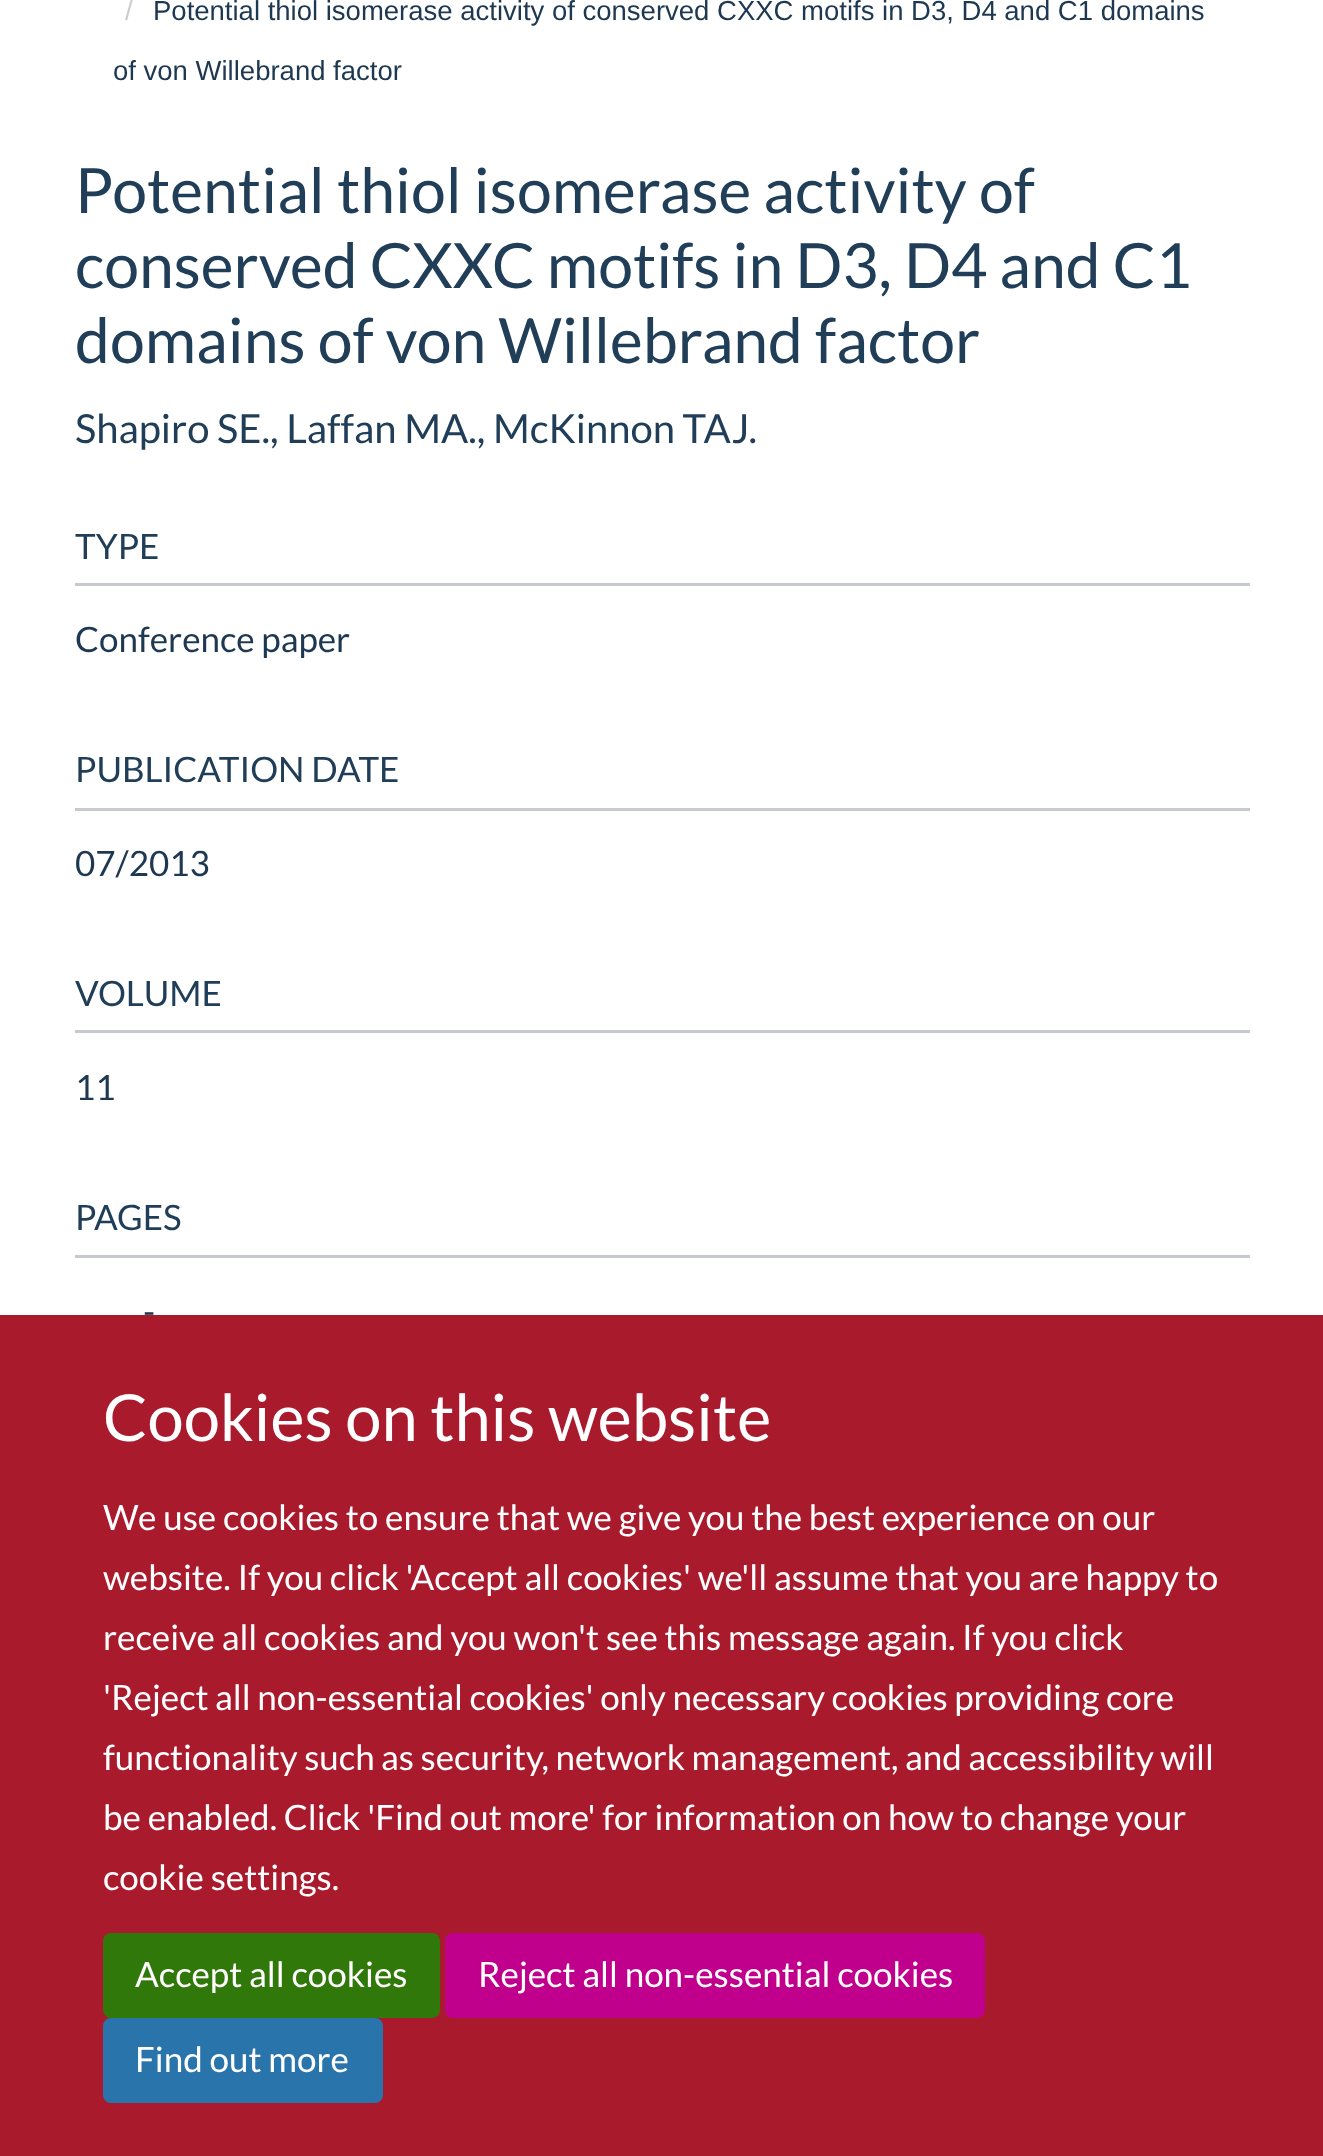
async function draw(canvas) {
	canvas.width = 1323;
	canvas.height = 2156;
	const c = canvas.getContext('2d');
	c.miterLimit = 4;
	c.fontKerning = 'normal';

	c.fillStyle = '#fff';
	c.fillRect(0, 0, 1323, 2156);
	c.font = '27.5px Liberation Sans';
	c.fillStyle = '#ccc';
	c.fillText('/', 125, 20);
	c.fillStyle = '#1d3850';
	c.fillText('Potential thiol isomerase activity of conserved CXXC motifs in D3, D4 and C1 domains', 153, 20);
	c.fillText('of von Willebrand factor', 113, 80);
	c.font = '62.5px Lato';
	c.fillStyle = '#203e58';
	for (const [text, x, y] of [
		['Potential thiol isomerase activity of', 75, 213],
		['conserved CXXC motifs in D3, D4 and C1', 75, 288],
		['domains of von Willebrand factor', 75, 363],
	]) {
		c.fillText(text, x, y);
	}
	c.font = '40px Lato';
	c.fillText('Shapiro SE., Laffan MA., McKinnon TAJ.', 75, 443);
	c.fillStyle = '#c6cacf';
	c.fillRect(75, 583, 1175, 3);
	c.font = '35px Lato';
	c.fillStyle = '#203e58';
	c.fillText('TYPE', 75, 559);
	c.fillStyle = '#1d3850';
	c.fillText('Conference paper', 75, 652);
	c.fillStyle = '#c6cacf';
	c.fillRect(75, 808, 1175, 3);
	c.fillStyle = '#203e58';
	c.fillText('PUBLICATION DATE', 75, 782);
	c.fillStyle = '#1d3850';
	c.fillText('07/2013', 75, 876);
	c.fillStyle = '#c6cacf';
	c.fillRect(75, 1030, 1175, 3);
	c.fillStyle = '#203e58';
	c.fillText('VOLUME', 75, 1006);
	c.fillStyle = '#1d3850';
	c.fillText('11', 75, 1100);
	c.fillStyle = '#c6cacf';
	c.fillRect(75, 1255, 1175, 3);
	c.fillStyle = '#203e58';
	c.fillText('PAGES', 75, 1230);
	c.fillStyle = '#1d3850';
	c.fillText('-', 143, 1324);
	c.fillStyle = '#aa1a2d';
	c.fillRect(0, 1315, 1323, 841);
	c.font = '65px Lato';
	c.fillStyle = '#fff';
	c.fillText('Cookies on this website', 103, 1441);
	c.font = '35px Lato';
	for (const [text, x, y] of [
		['We use cookies to ensure that we give you the best experience on our', 103, 1530],
		['website. If you click \'Accept all cookies\' we\'ll assume that you are happy to', 103, 1590],
		['receive all cookies and you won\'t see this message again. If you click', 103, 1650],
	]) {
		c.fillText(text, x, y);
	}
	c.wordSpacing = '-0.25px';
	c.fillText('\'Reject all non-essential cookies\' only necessary cookies providing core', 103, 1710);
	c.fillText('functionality such as security, network management, and accessibility will', 103, 1770);
	c.wordSpacing = '0px';
	c.fillText('be enabled. Click \'Find out more\' for information on how to change your', 103, 1830);
	c.fillText('cookie settings.', 103, 1890);
	c.fillStyle = '#31780a';
	c.beginPath();
	c.roundRect(104.5, 1934.5, 334, 82, 6.5);
	c.fill();
	c.strokeStyle = '#31780a';
	c.lineWidth = 3;
	c.stroke();
	c.fillStyle = '#fff';
	c.fillText('Accept all cookies', 135, 1987);
	c.fillStyle = '#c0008d';
	c.beginPath();
	c.roundRect(446.5, 1934.5, 537, 82, 6.5);
	c.fill();
	c.strokeStyle = '#c0008d';
	c.stroke();
	c.fillStyle = '#fff';
	c.fillText('Reject all non-essential cookies', 478, 1987);
	c.fillStyle = '#2a74ac';
	c.beginPath();
	c.roundRect(104.5, 2019.5, 277, 82, 6.5);
	c.fill();
	c.strokeStyle = '#2a74ac';
	c.stroke();
	c.fillStyle = '#fff';
	c.fillText('Find out more', 135, 2072);
}

draw(document.querySelector('canvas'));
